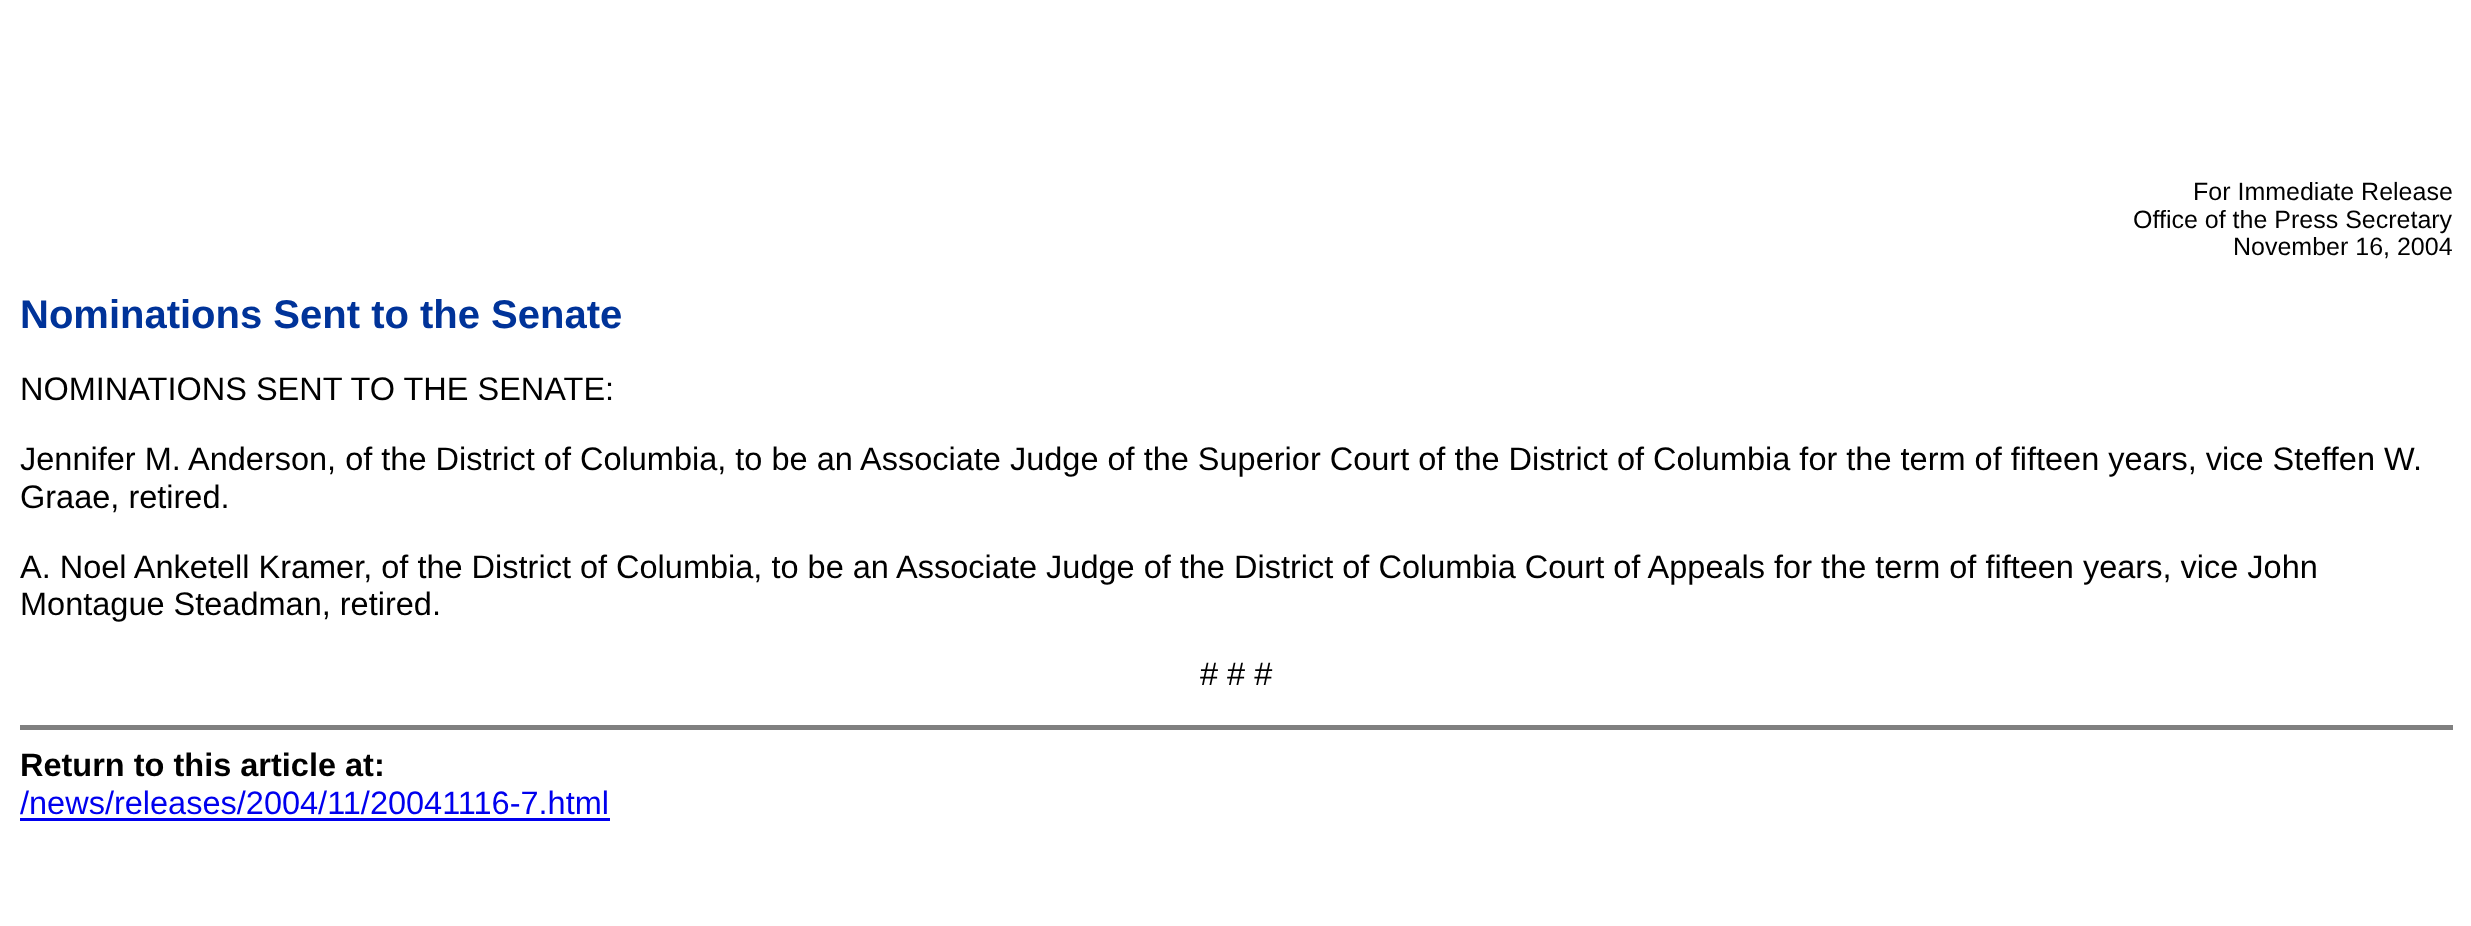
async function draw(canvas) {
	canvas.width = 2471;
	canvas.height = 926;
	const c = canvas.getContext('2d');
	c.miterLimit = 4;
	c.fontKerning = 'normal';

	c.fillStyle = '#fff';
	c.fillRect(0, 0, 2471, 926);
	c.font = '25px Liberation Sans';
	c.fillStyle = '#000';
	for (const [text, x, y] of [
		['For Immediate Release', 2193, 200],
		['Office of the Press Secretary', 2133, 228],
		['November 16, 2004', 2233, 255],
	]) {
		c.fillText(text, x, y);
	}
	c.font = 'bold 40px Liberation Sans';
	c.fillStyle = '#039';
	c.fillText('Nominations Sent to the Senate', 20, 328);
	c.font = '32.5px Liberation Sans';
	c.fillStyle = '#000';
	for (const [text, x, y] of [
		['NOMINATIONS SENT TO THE SENATE:', 20, 400],
		['Jennifer M. Anderson, of the District of Columbia, to be an Associate Judge of the Superior Court of the District of Columbia for the term of fifteen years, vice Steffen W.', 20, 470],
		['Graae, retired.', 20, 508],
		['A. Noel Anketell Kramer, of the District of Columbia, to be an Associate Judge of the District of Columbia Court of Appeals for the term of fifteen years, vice John', 20, 578],
		['Montague Steadman, retired.', 20, 615],
		['# # #', 1200, 685],
	]) {
		c.fillText(text, x, y);
	}
	c.fillStyle = '#808080';
	c.fillRect(20, 725, 2433, 5);
	c.font = 'bold 32.5px Liberation Sans';
	c.fillStyle = '#000';
	c.fillText('Return to this article at:', 20, 776);
	c.font = '32.5px Liberation Sans';
	c.fillStyle = '#00e';
	c.fillText('/news/releases/2004/11/20041116-7.html', 20, 814);
	c.fillRect(20, 818, 590, 3);
}

draw(document.querySelector('canvas'));
